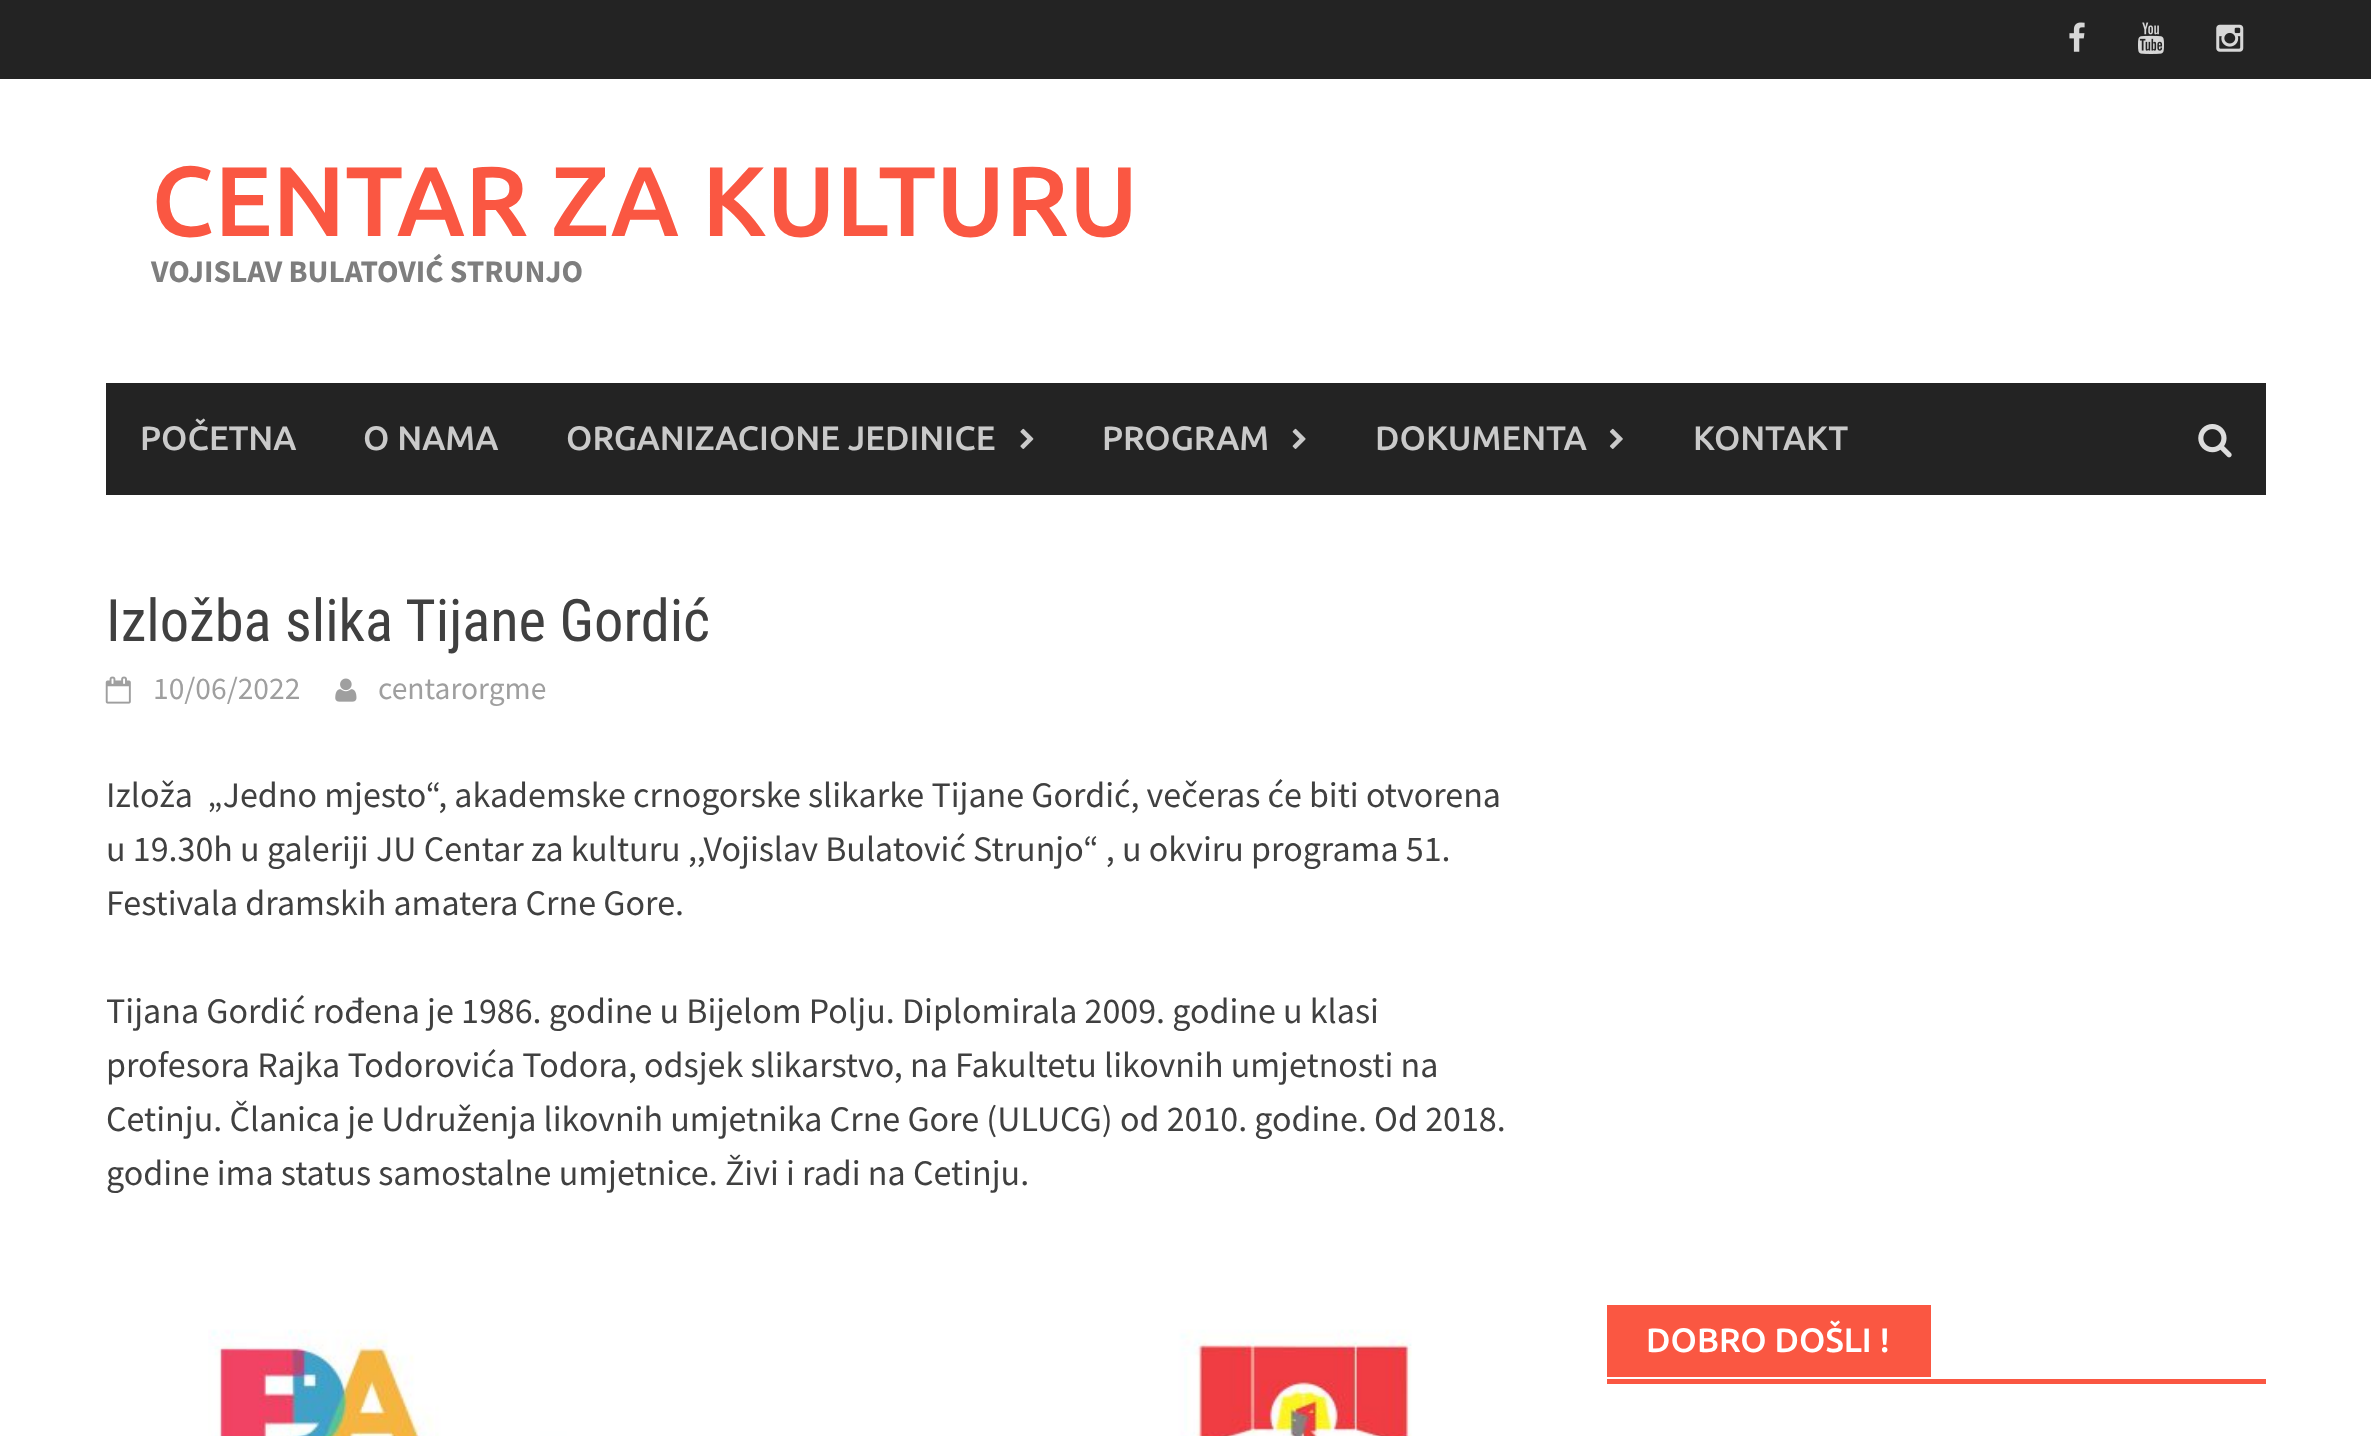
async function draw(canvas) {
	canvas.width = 2371;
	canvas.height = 1436;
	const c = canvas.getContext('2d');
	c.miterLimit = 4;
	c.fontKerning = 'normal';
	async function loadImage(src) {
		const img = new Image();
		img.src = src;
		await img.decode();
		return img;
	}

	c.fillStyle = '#fff';
	c.fillRect(0, 0, 2371, 1436);
	c.fillStyle = '#232323';
	c.fillRect(0, 0, 2371, 79);
	c.drawImage(await loadImage('img1.png'), 2069, 22, 16, 30);
	c.drawImage(await loadImage('img2.png'), 2138, 22, 26, 32);
	c.drawImage(await loadImage('img3.png'), 2216, 24, 28, 28);
	c.font = '500 99px Ubuntu';
	c.fillStyle = '#fa5742';
	c.fillText('CENTAR ZA KULTURU', 151, 236);
	c.font = 'bold 31.5px Source Sans Pro';
	c.fillStyle = '#7e7e7e';
	c.fillText('VOJISLAV BULATOVIĆ STRUNJO', 151, 282);
	c.fillStyle = '#232323';
	c.fillRect(106, 383, 2160, 112);
	c.font = '500 33.75px Ubuntu';
	c.fillStyle = '#cacaca';
	for (const [text, x, y] of [
		['POČETNA', 140, 450],
		['O NAMA', 363, 450],
		['ORGANIZACIONE JEDINICE', 566, 450],
	]) {
		c.fillText(text, x, y);
	}
	c.drawImage(await loadImage('img4.png'), 1020, 428, 14, 21);
	c.fillText('PROGRAM', 1102, 450);
	c.drawImage(await loadImage('img5.png'), 1292, 428, 14, 21);
	c.fillText('DOKUMENTA', 1375, 450);
	c.drawImage(await loadImage('img6.png'), 1609, 428, 14, 21);
	c.fillText('KONTAKT', 1693, 450);
	c.drawImage(await loadImage('img7.png'), 2198, 424, 34, 34);
	c.font = '58.5px Roboto Condensed';
	c.fillStyle = '#404040';
	c.fillText('Izložba slika Tijane Gordić', 106, 641);
	c.drawImage(await loadImage('img8.png'), 105, 676, 26, 28);
	c.font = '31.5px Source Sans Pro';
	c.fillStyle = '#9f9f9f';
	c.fillText('10/06/2022', 153, 699);
	c.drawImage(await loadImage('img9.png'), 335, 678, 22, 24);
	c.fillText('centarorgme', 378, 699);
	c.font = '36px Source Sans Pro';
	c.fillStyle = '#404040';
	for (const [text, x, y] of [
		['Izloža  „Jedno mjesto“, akademske crnogorske slikarke Tijane Gordić, večeras će biti otvorena', 106, 807],
		['u 19.30h u galeriji JU Centar za kulturu ,,Vojislav Bulatović Strunjo“ , u okviru programa 51.', 106, 861],
		['Festivala dramskih amatera Crne Gore.', 106, 915],
		['Tijana Gordić rođena je 1986. godine u Bijelom Polju. Diplomirala 2009. godine u klasi', 106, 1023],
		['profesora Rajka Todorovića Todora, odsjek slikarstvo, na Fakultetu likovnih umjetnosti na', 106, 1077],
		['Cetinju. Članica je Udruženja likovnih umjetnika Crne Gore (ULUCG) od 2010. godine. Od 2018.', 106, 1131],
		['godine ima status samostalne umjetnice. Živi i radi na Cetinju.', 106, 1185],
	]) {
		c.fillText(text, x, y);
	}
	c.drawImage(await loadImage('img10.png'), 208, 1329, 1204, 107);
	c.fillStyle = '#fa5742';
	c.fillRect(1607, 1379, 659, 5);
	c.fillRect(1607, 1305, 324, 72);
	c.font = '500 33.75px Ubuntu';
	c.fillStyle = '#fff';
	c.fillText('DOBRO DOŠLI !', 1646, 1352);
}

draw(document.querySelector('canvas'));
